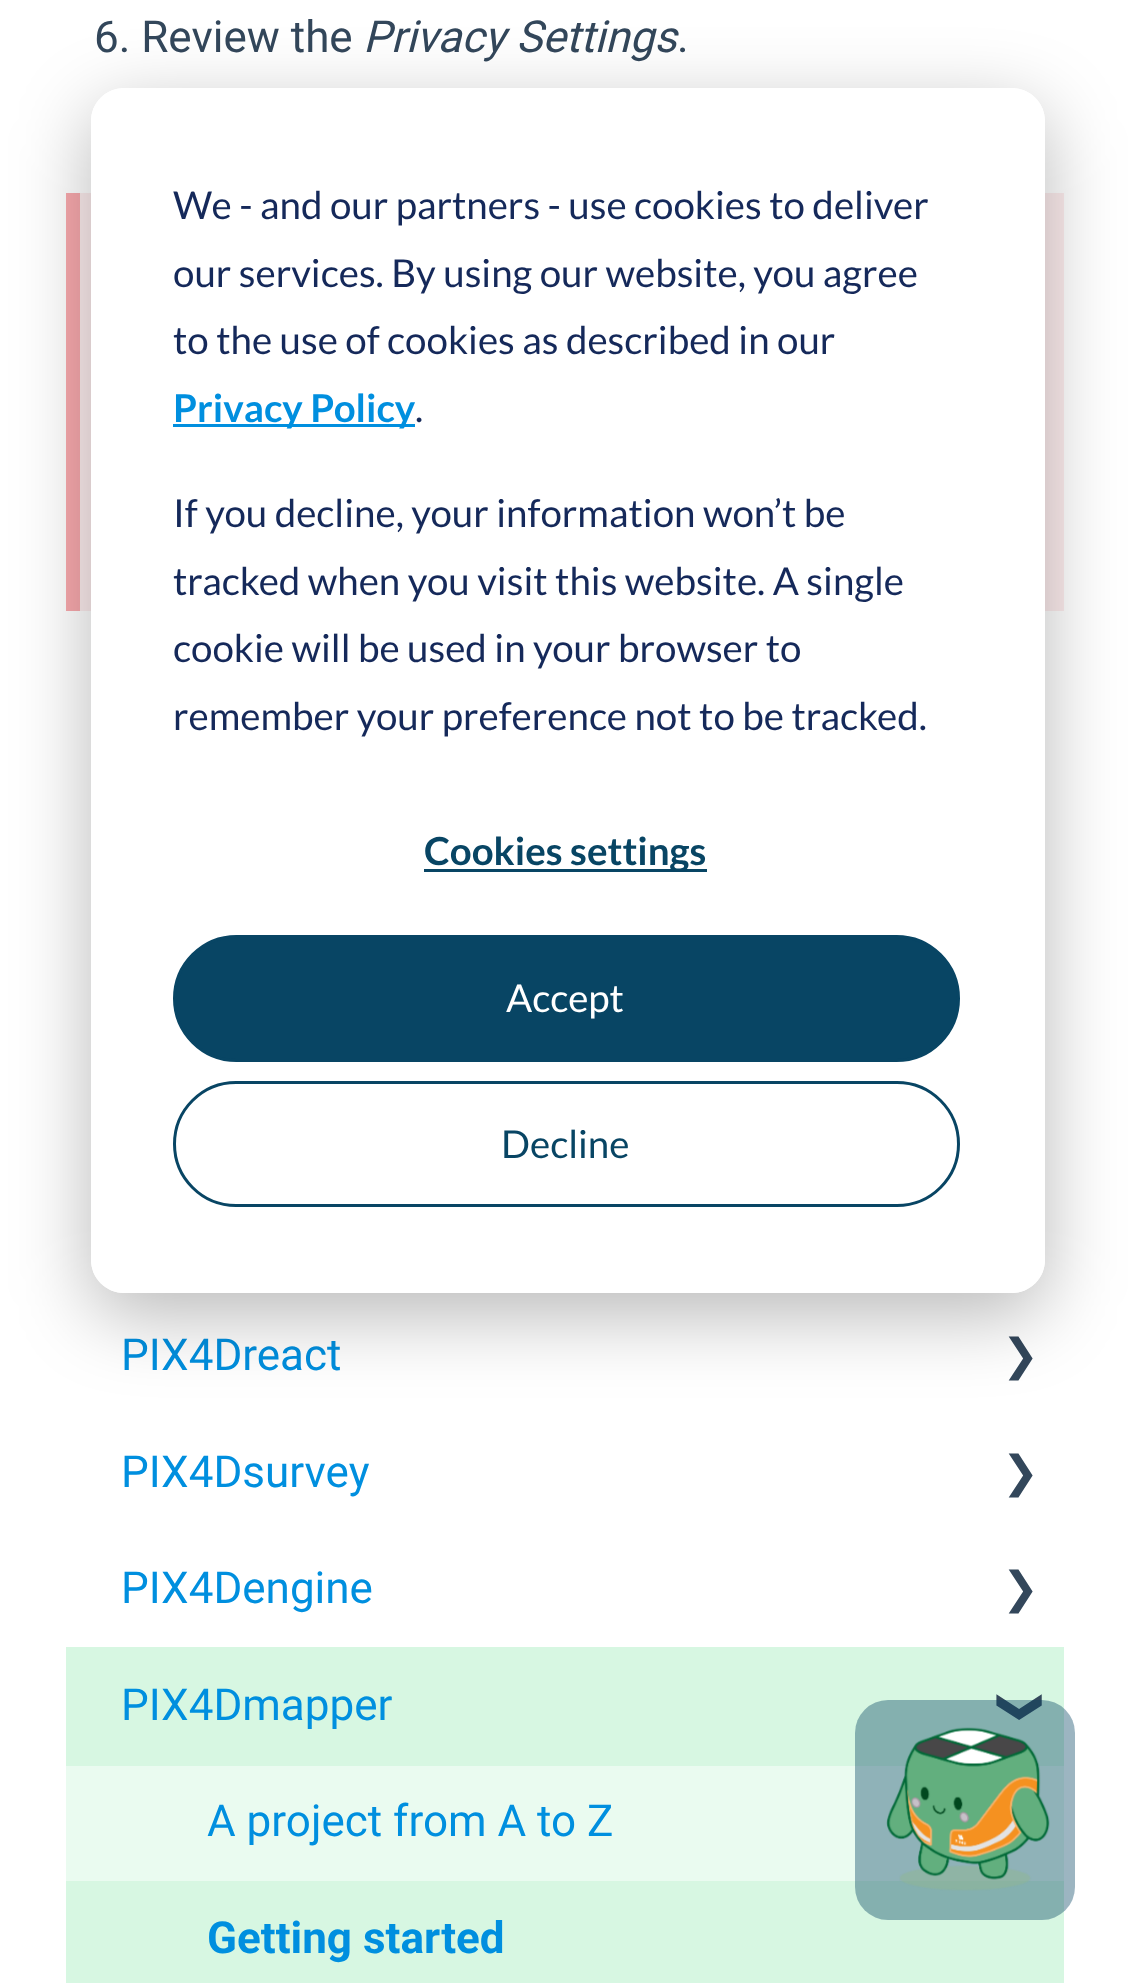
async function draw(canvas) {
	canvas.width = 1128;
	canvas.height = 1983;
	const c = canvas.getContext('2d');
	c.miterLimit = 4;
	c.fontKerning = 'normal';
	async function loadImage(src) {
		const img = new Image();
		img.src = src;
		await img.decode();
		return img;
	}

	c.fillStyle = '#fff';
	c.fillRect(0, 0, 1128, 1983);
	c.font = '44px Roboto';
	c.fillStyle = '#33475b';
	c.fillText('6. Review the', 94, 52);
	c.font = 'italic 44px Roboto';
	c.fillText('Privacy Settings', 363, 52);
	c.font = '44px Roboto';
	c.fillText('.', 677, 52);
	c.fillStyle = '#fdedee';
	c.fillRect(80, 193, 984, 418);
	c.fillStyle = '#f8a9ad';
	c.fillRect(66, 193, 14, 418);
	c.fillStyle = '#008fdf';
	c.fillText('PIX4Dreact', 121, 1370);
	c.font = '44px DejaVu Sans';
	c.fillStyle = '#33475b';
	c.fillText('❯', 1002, 1370);
	c.font = '44px Roboto';
	c.fillStyle = '#008fdf';
	c.fillText('PIX4Dsurvey', 121, 1487);
	c.font = '44px DejaVu Sans';
	c.fillStyle = '#33475b';
	c.fillText('❯', 1002, 1487);
	c.font = '44px Roboto';
	c.fillStyle = '#008fdf';
	c.fillText('PIX4Dengine', 121, 1603);
	c.font = '44px DejaVu Sans';
	c.fillStyle = '#33475b';
	c.fillText('❯', 1002, 1603);
	c.fillStyle = '#eafbf0';
	c.fillRect(66, 1766, 998, 115);
	c.fillStyle = '#d7f7e2';
	c.fillRect(66, 1647, 998, 119);
	c.font = '44px Roboto';
	c.fillStyle = '#008fdf';
	c.fillText('PIX4Dmapper', 121, 1720);
	c.font = 'bold 44px DejaVu Sans';
	c.fillStyle = '#33475b';
	c.save();
	c.translate(1007, 1688);
	c.rotate(90 * Math.PI / 180);
	c.fillText('❯', 0, 0);
	c.restore();
	c.font = '44px Roboto';
	c.fillStyle = '#008fdf';
	c.fillText('A project from A to Z', 207, 1836);
	c.fillStyle = '#d7f7e2';
	c.fillRect(66, 1881, 998, 102);
	c.font = 'bold 44px Roboto';
	c.fillStyle = '#008fdf';
	c.fillText('Getting started', 207, 1953);
	c.save();
	c.beginPath();
	c.moveTo(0, 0);
	c.lineTo(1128, 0);
	c.lineTo(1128, 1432);
	c.lineTo(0, 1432);
	c.closePath();
	c.moveTo(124, 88);
	c.lineTo(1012, 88);
	c.bezierCurveTo(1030, 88, 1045, 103, 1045, 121);
	c.lineTo(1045, 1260);
	c.bezierCurveTo(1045, 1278, 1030, 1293, 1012, 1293);
	c.lineTo(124, 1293);
	c.bezierCurveTo(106, 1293, 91, 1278, 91, 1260);
	c.lineTo(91, 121);
	c.bezierCurveTo(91, 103, 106, 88, 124, 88);
	c.closePath();
	c.clip('evenodd');
	c.fillStyle = '#00000047';
	c.filter = 'blur(38.5px)';
	c.beginPath();
	c.roundRect(91, 110, 954, 1205, 33);
	c.fill();
	c.filter = 'none';
	c.restore();
	c.fillStyle = '#fff';
	c.beginPath();
	c.roundRect(91, 88, 954, 1205, 33);
	c.fill();
	c.font = '38.5px Lato';
	c.fillStyle = '#15295a';
	for (const [text, x, y] of [
		['We - and our partners - use cookies to deliver', 173, 219],
		['our services. By using our website, you agree', 173, 287],
		['to the use of cookies as described in our', 173, 354],
	]) {
		c.fillText(text, x, y);
	}
	c.fillStyle = '#008fdf';
	c.fillRect(173, 424, 242, 3);
	c.font = 'bold 38.5px Lato';
	c.fillText('Privacy Policy', 173, 422);
	c.font = '38.5px Lato';
	c.fillStyle = '#15295a';
	for (const [text, x, y] of [
		['.', 415, 422],
		['If you decline, your information won’t be', 173, 527],
		['tracked when you visit this website. A single', 173, 595],
		['cookie will be used in your browser to', 173, 662],
		['remember your preference not to be tracked.', 173, 730],
	]) {
		c.fillText(text, x, y);
	}
	c.fillStyle = '#084564';
	c.fillRect(424, 869, 283, 3);
	c.font = 'bold 38.5px Lato';
	c.fillText('Cookies settings', 424, 865);
	c.beginPath();
	c.roundRect(174.5, 936.5, 784, 124, 62);
	c.fill();
	c.strokeStyle = '#084564';
	c.lineWidth = 3;
	c.stroke();
	c.font = '38.5px Lato';
	c.fillStyle = '#fff';
	c.fillText('Accept', 506, 1012);
	c.beginPath();
	c.roundRect(174.5, 1082.5, 784, 123, 61.5);
	c.stroke();
	c.fillStyle = '#084564';
	c.fillText('Decline', 501, 1158);
	c.fillStyle = '#08456466';
	c.beginPath();
	c.roundRect(855, 1700, 220, 220, 33);
	c.fill();
	c.drawImage(await loadImage('img1.png'), 886, 1727, 164, 164);
}

draw(document.querySelector('canvas'));
